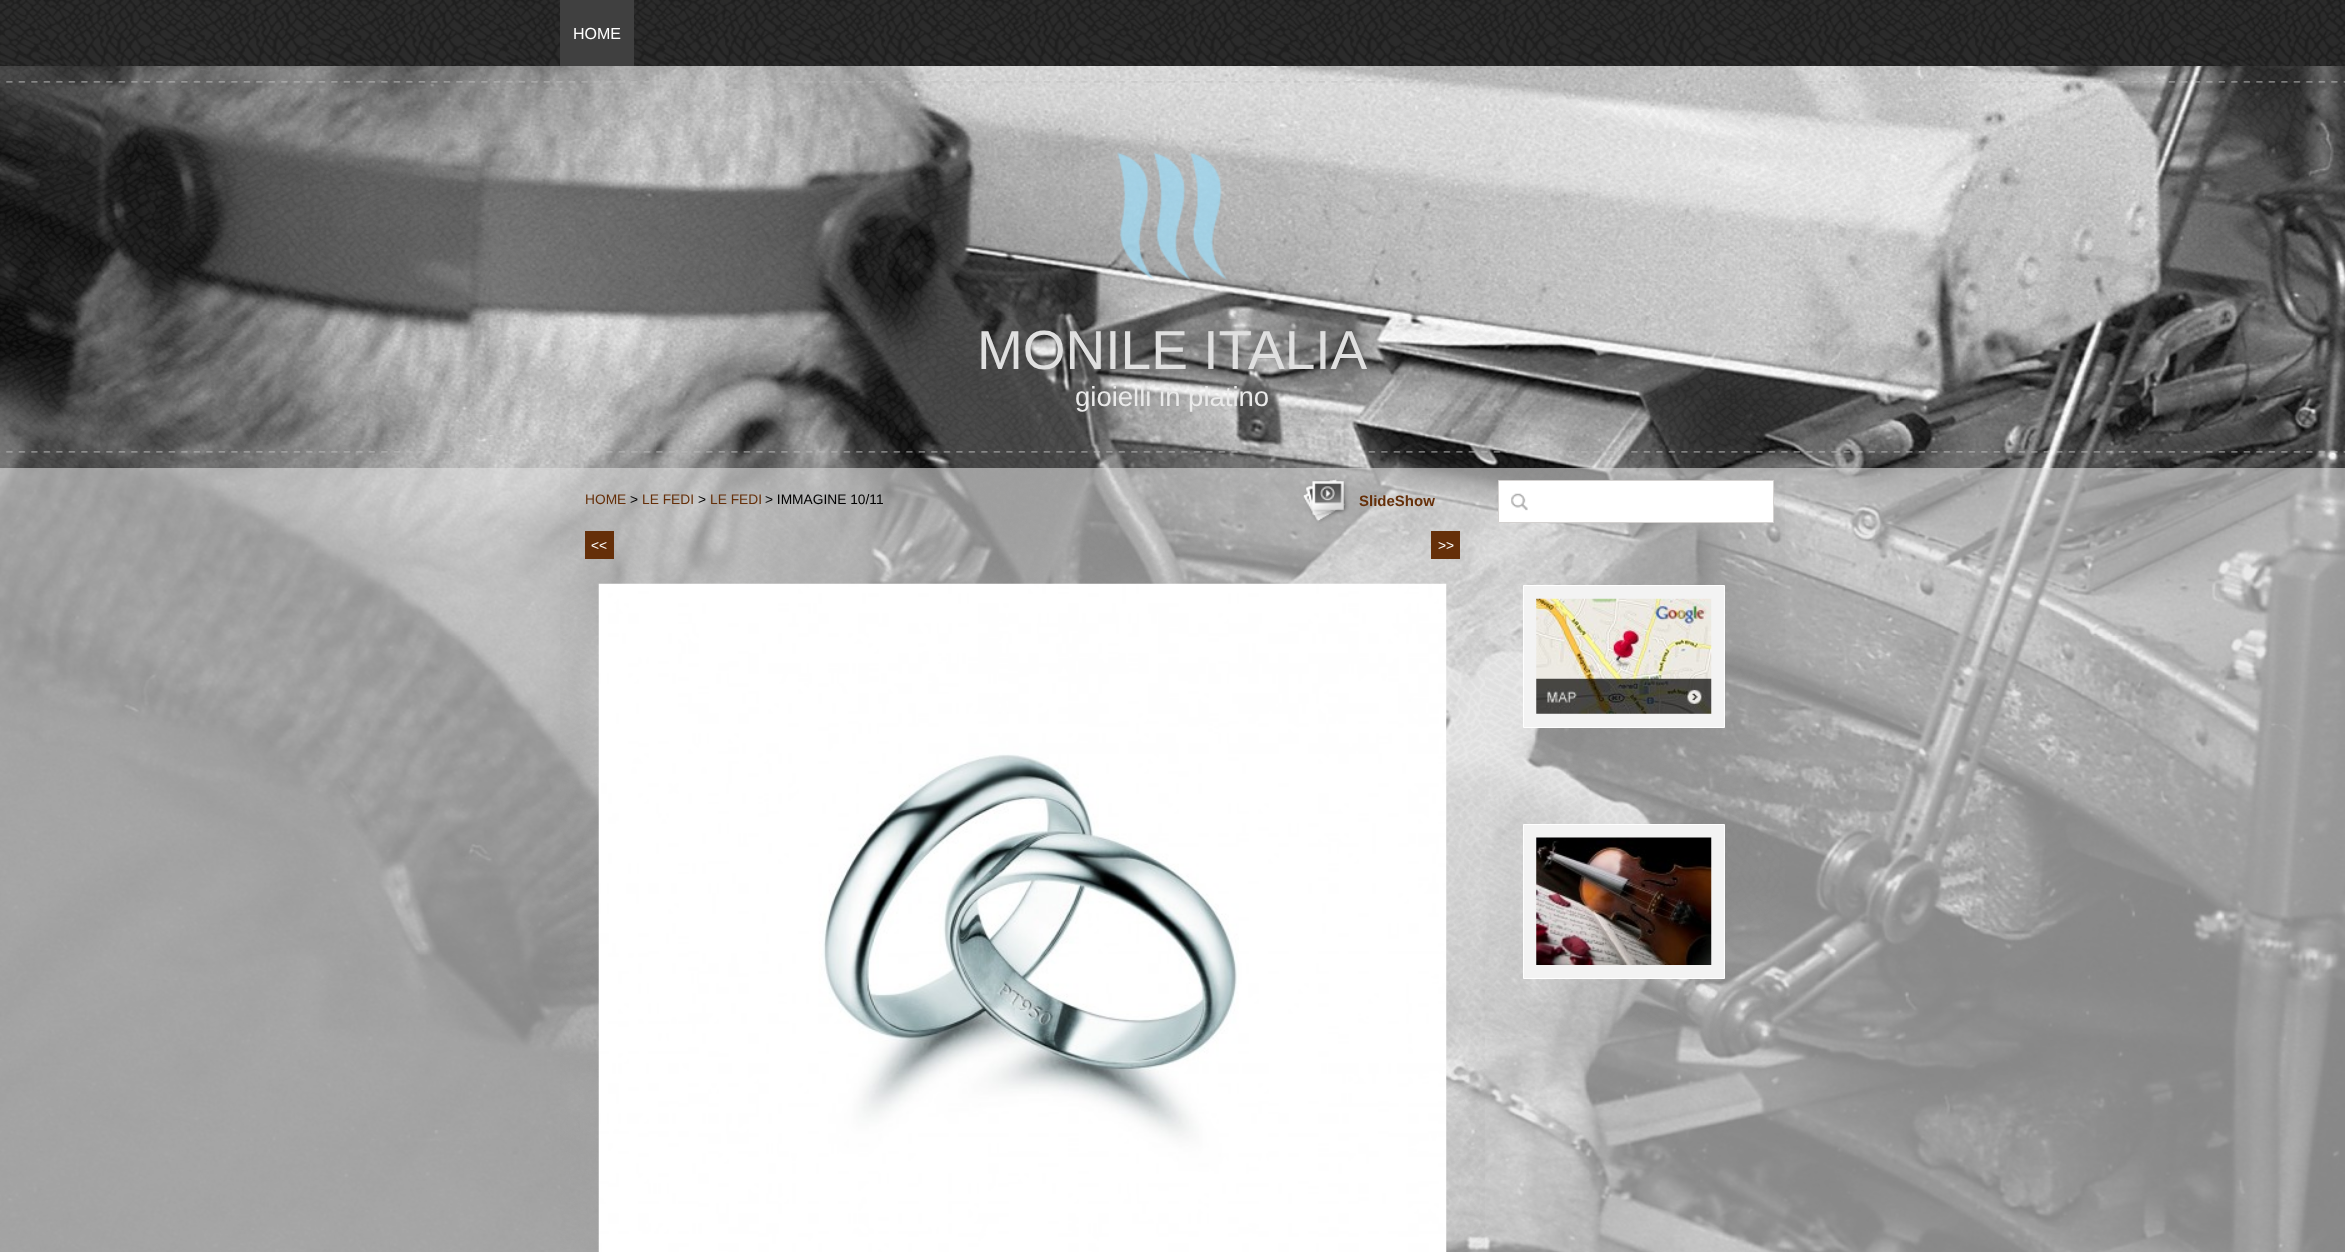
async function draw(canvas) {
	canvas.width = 2345;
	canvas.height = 1252;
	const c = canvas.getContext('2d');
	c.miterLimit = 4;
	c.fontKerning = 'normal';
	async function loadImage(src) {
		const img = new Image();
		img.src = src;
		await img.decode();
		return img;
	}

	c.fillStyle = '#fff';
	c.fillRect(0, 0, 2345, 1252);
	c.drawImage(await loadImage('img1.png'), 0, 66, 2345, 1186);
	c.fillStyle = '#1f1f1f';
	c.fillRect(0, 0, 2345, 66);
	c.drawImage(await loadImage('img2.png'), 0, 0, 2345, 66);
	c.fillStyle = '#404040';
	c.fillRect(560, 0, 74, 66);
	c.font = '16px Liberation Sans';
	c.fillStyle = '#fff';
	c.fillText('HOME', 573, 39);
	c.fillStyle = '#dedede99';
	c.fillRect(0, 468, 2345, 784);
	c.drawImage(await loadImage('img5.png'), 560, 467, 925, 782);
	c.drawImage(await loadImage('img8.png'), 1485, 467, 300, 570);
	c.drawImage(await loadImage('img3.png'), 0, 66, 2345, 402);
	c.drawImage(await loadImage('img4.png'), 1117, 152, 111, 128);
	c.font = '55px Liberation Sans';
	c.fillStyle = '#e0e0e0';
	c.fillText('MONILE ITALIA', 977, 369);
	c.font = '27.5px Liberation Sans';
	c.fillStyle = '#eaeaea';
	c.fillText('gioielli in platino', 1075, 406);
	c.font = '13.75px Liberation Sans';
	c.fillStyle = '#652f09';
	c.fillText('HOME', 585, 504);
	c.fillStyle = '#000';
	c.fillText('>', 630, 504);
	c.fillStyle = '#652f09';
	c.fillText('LE FEDI', 642, 504);
	c.fillStyle = '#000';
	c.fillText('>', 698, 504);
	c.fillStyle = '#652f09';
	c.fillText('LE FEDI', 710, 504);
	c.fillStyle = '#000';
	c.fillText('> IMMAGINE 10/11', 765, 504);
	c.drawImage(await loadImage('img6.png'), 1303, 478, 46, 46);
	c.font = 'bold 15px Liberation Sans';
	c.fillStyle = '#652f09';
	c.fillText('SlideShow', 1359, 506);
	c.fillRect(585, 531, 29, 28);
	c.font = '13.75px Liberation Sans';
	c.fillStyle = '#fff';
	c.fillText('<<', 591, 550);
	c.fillStyle = '#652f09';
	c.fillRect(1431, 531, 29, 28);
	c.fillStyle = '#fff';
	c.fillText('>>', 1438, 550);
	c.drawImage(await loadImage('img7.png'), 598, 583, 849, 669);
	c.beginPath();
	c.rect(1498.5, 480.5, 275, 42);
	c.fill();
	c.strokeStyle = '#d4d1cf';
	c.stroke();
	c.drawImage(await loadImage('img9.png'), 1511, 493, 17, 18);
	c.fillStyle = '#f3f3f3';
	c.beginPath();
	c.rect(1523.5, 585.5, 201, 142);
	c.fill();
	c.strokeStyle = '#fff';
	c.stroke();
	c.drawImage(await loadImage('img10.png'), 1536, 598, 176, 116);
	c.beginPath();
	c.rect(1523.5, 824.5, 201, 154);
	c.fill();
	c.stroke();
	c.drawImage(await loadImage('img11.png'), 1536, 837, 176, 128);
	c.fillStyle = '#e6e6e6';
	c.fillRect(1700, 989, 1, 1);
}

draw(document.querySelector('canvas'));
